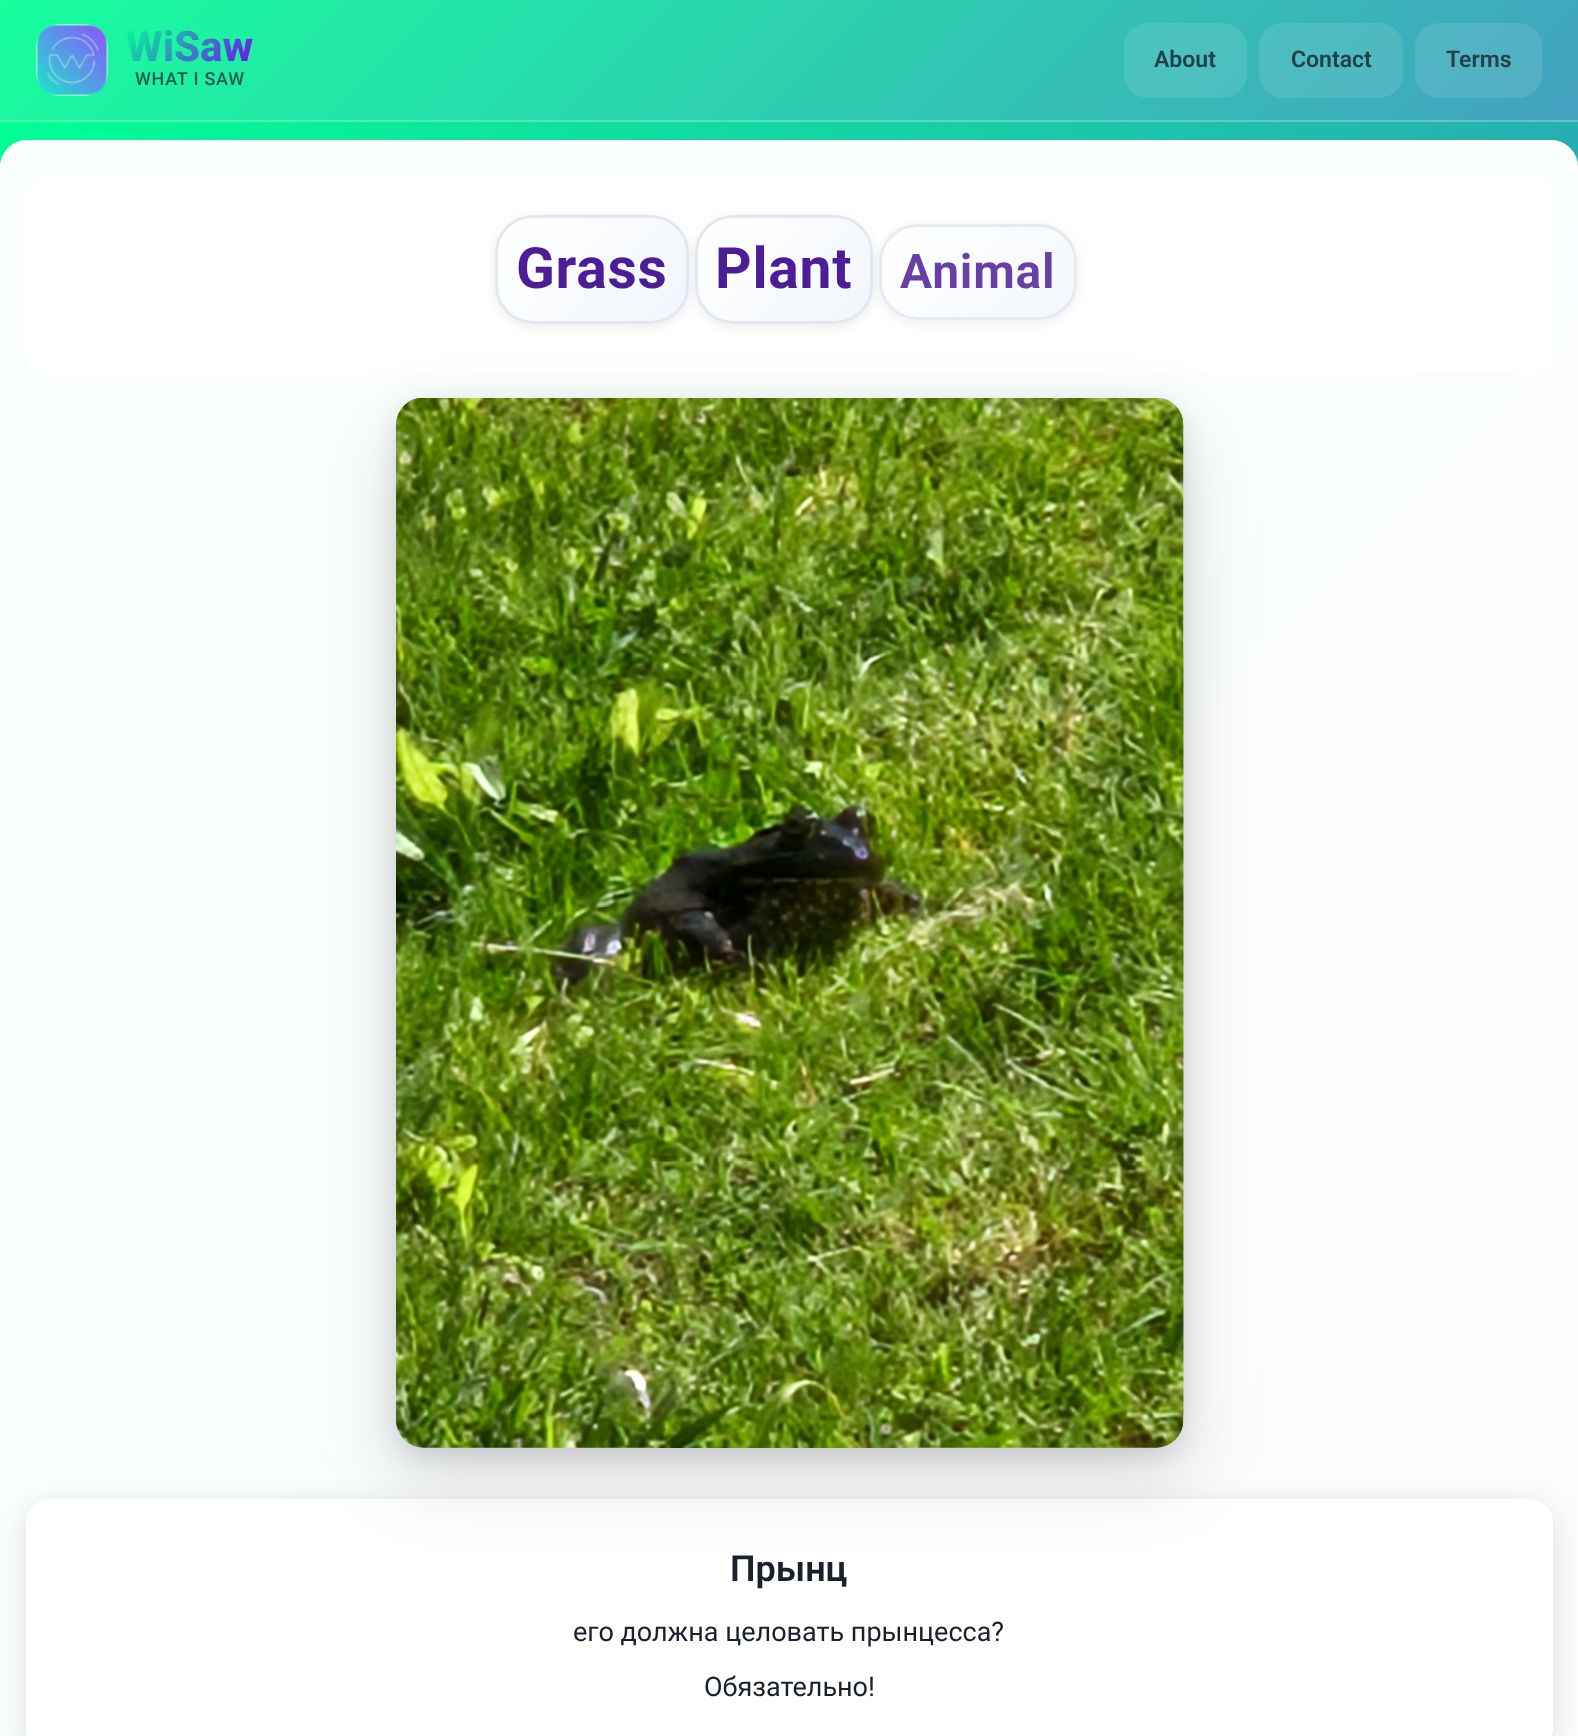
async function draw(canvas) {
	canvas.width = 1578;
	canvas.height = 1736;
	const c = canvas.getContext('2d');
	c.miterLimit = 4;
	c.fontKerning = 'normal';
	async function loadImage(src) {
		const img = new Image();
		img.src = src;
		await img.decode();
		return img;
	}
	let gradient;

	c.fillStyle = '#fff';
	c.fillRect(0, 0, 1578, 1736);
	gradient = c.createLinearGradient(-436, 436, 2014, 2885);
	gradient.addColorStop(0, '#00ff94');
	gradient.addColorStop(1, '#720cf0');
	c.fillStyle = gradient;
	c.fillRect(0, 0, 1578, 122);
	c.fillStyle = '#ffffff1a';
	c.fillRect(0, 0, 1578, 122);
	c.fillStyle = '#ffffff33';
	c.fillRect(0, 120, 1578, 2);
	gradient = c.createLinearGradient(364, -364, 1214, 485);
	gradient.addColorStop(0, '#00ff941a');
	gradient.addColorStop(1, '#720cf01a');
	c.fillStyle = gradient;
	c.fillRect(0, 0, 1578, 120);
	c.fillStyle = '#ffffff33';
	c.beginPath();
	c.roundRect(36, 24, 72, 72, 24);
	c.fill();
	c.beginPath();
	c.roundRect(37, 25, 70, 70, 23);
	c.strokeStyle = '#ffffff4d';
	c.lineWidth = 2;
	c.stroke();
	c.drawImage(await loadImage('img1.png'), 37, 25, 70, 70);
	c.font = '800 42px Roboto';
	gradient = c.createLinearGradient(147, 4.8, 232, 89);
	gradient.addColorStop(0, '#00ff94');
	gradient.addColorStop(1, '#720cf0');
	c.fillStyle = gradient;
	c.fillText('WiSaw', 126, 61);
	c.letterSpacing = '0.75px';
	c.font = '500 18px Roboto';
	c.fillStyle = '#1b5e50';
	c.fillText('WHAT I SAW', 135, 85);
	c.fillStyle = '#ffffff1a';
	c.beginPath();
	c.roundRect(1124, 23, 123, 75, 24);
	c.fill();
	c.letterSpacing = '0px';
	c.font = '600 23px Roboto';
	c.fillStyle = '#244049';
	c.fillText('About', 1154, 67);
	c.fillStyle = '#ffffff1a';
	c.beginPath();
	c.roundRect(1259, 23, 144, 75, 24);
	c.fill();
	c.fillStyle = '#244049';
	c.fillText('Contact', 1291, 67);
	c.fillStyle = '#ffffff1a';
	c.beginPath();
	c.roundRect(1415, 23, 127, 75, 24);
	c.fill();
	c.fillStyle = '#244049';
	c.fillText('Terms', 1446, 67);
	gradient = c.createLinearGradient(-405, 527, 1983, 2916);
	gradient.addColorStop(0, '#00ff94');
	gradient.addColorStop(1, '#720cf0');
	c.fillStyle = gradient;
	c.fillRect(0, 122, 1578, 1614);
	c.fillStyle = '#fffffffa';
	c.beginPath();
	c.roundRect(0, 140, 1578, 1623, 27);
	c.fill();
	c.beginPath();
	c.roundRect(1, 141, 1576, 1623, 26);
	c.strokeStyle = '#ffffff66';
	c.stroke();
	c.fillStyle = '#fff';
	c.beginPath();
	c.roundRect(26, 177, 1527, 197, 18);
	c.fill();
	c.save();
	c.beginPath();
	c.moveTo(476, 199);
	c.lineTo(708, 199);
	c.lineTo(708, 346);
	c.lineTo(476, 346);
	c.closePath();
	c.moveTo(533, 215);
	c.lineTo(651, 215);
	c.bezierCurveTo(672, 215, 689, 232, 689, 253);
	c.lineTo(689, 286);
	c.bezierCurveTo(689, 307, 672, 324, 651, 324);
	c.lineTo(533, 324);
	c.bezierCurveTo(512, 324, 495, 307, 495, 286);
	c.lineTo(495, 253);
	c.bezierCurveTo(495, 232, 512, 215, 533, 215);
	c.closePath();
	c.clip('evenodd');
	c.fillStyle = '#00000014';
	c.filter = 'blur(6px)';
	c.beginPath();
	c.roundRect(495, 218, 194, 109, 38);
	c.fill();
	c.filter = 'none';
	c.restore();
	c.save();
	c.beginPath();
	c.roundRect(495, 215, 194, 109, 38);
	c.clip();
	gradient = c.createLinearGradient(519, 197, 665, 342);
	gradient.addColorStop(0, '#ffffffe6');
	gradient.addColorStop(1, '#f0f5fbf2');
	c.fillStyle = gradient;
	c.fillRect(498, 218, 188, 103);
	c.restore();
	c.beginPath();
	c.roundRect(496.5, 216.5, 191, 106, 36.5);
	c.strokeStyle = '#e2e8f0';
	c.lineWidth = 3;
	c.stroke();
	c.letterSpacing = '0.75px';
	c.font = 'bold 57px Roboto';
	c.fillStyle = '#4c1d95';
	c.fillText('Grass', 516, 288);
	c.save();
	c.beginPath();
	c.moveTo(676, 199);
	c.lineTo(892, 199);
	c.lineTo(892, 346);
	c.lineTo(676, 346);
	c.closePath();
	c.moveTo(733, 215);
	c.lineTo(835, 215);
	c.bezierCurveTo(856, 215, 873, 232, 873, 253);
	c.lineTo(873, 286);
	c.bezierCurveTo(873, 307, 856, 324, 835, 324);
	c.lineTo(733, 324);
	c.bezierCurveTo(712, 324, 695, 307, 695, 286);
	c.lineTo(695, 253);
	c.bezierCurveTo(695, 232, 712, 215, 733, 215);
	c.closePath();
	c.clip('evenodd');
	c.fillStyle = '#00000014';
	c.filter = 'blur(6px)';
	c.beginPath();
	c.roundRect(695, 218, 178, 109, 38);
	c.fill();
	c.filter = 'none';
	c.restore();
	c.save();
	c.beginPath();
	c.roundRect(695, 215, 178, 109, 38);
	c.clip();
	gradient = c.createLinearGradient(715, 200, 853, 338);
	gradient.addColorStop(0, '#ffffffe6');
	gradient.addColorStop(1, '#f0f5fbf2');
	c.fillStyle = gradient;
	c.fillRect(698, 218, 172, 103);
	c.restore();
	c.beginPath();
	c.roundRect(696.5, 216.5, 175, 106, 36.5);
	c.stroke();
	c.fillText('Plant', 715, 288);
	c.save();
	c.beginPath();
	c.moveTo(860, 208);
	c.lineTo(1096, 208);
	c.lineTo(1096, 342);
	c.lineTo(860, 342);
	c.closePath();
	c.moveTo(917, 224);
	c.lineTo(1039, 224);
	c.bezierCurveTo(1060, 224, 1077, 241, 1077, 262);
	c.lineTo(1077, 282);
	c.bezierCurveTo(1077, 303, 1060, 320, 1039, 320);
	c.lineTo(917, 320);
	c.bezierCurveTo(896, 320, 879, 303, 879, 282);
	c.lineTo(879, 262);
	c.bezierCurveTo(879, 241, 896, 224, 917, 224);
	c.closePath();
	c.clip('evenodd');
	c.fillStyle = '#00000012';
	c.filter = 'blur(6px)';
	c.beginPath();
	c.roundRect(879, 227, 198, 96, 38);
	c.fill();
	c.filter = 'none';
	c.restore();
	c.save();
	c.beginPath();
	c.roundRect(879, 224, 198, 96, 38);
	c.clip();
	gradient = c.createLinearGradient(908, 111, 1049, 252);
	gradient.addColorStop(0, '#fff');
	gradient.addColorStop(1, '#f3f6fc');
	c.fillStyle = gradient;
	c.fillRect(902, 224, 152, 3);
	gradient = c.createLinearGradient(716, 201, 857, 342);
	gradient.addColorStop(0, '#ffffffe6');
	gradient.addColorStop(1, '#f2f6fbf2');
	c.fillStyle = gradient;
	c.fillRect(879, 247, 3, 50);
	gradient = c.createLinearGradient(908, 201, 1049, 342);
	gradient.addColorStop(0, '#ffffffe6');
	gradient.addColorStop(1, '#f2f6fcf2');
	c.fillStyle = gradient;
	c.fillRect(882, 227, 192, 90);
	gradient = c.createLinearGradient(1100, 201, 1241, 342);
	gradient.addColorStop(0, '#ffffffe6');
	gradient.addColorStop(1, '#f2f6fcf2');
	c.fillStyle = gradient;
	c.fillRect(1074, 247, 3, 50);
	gradient = c.createLinearGradient(908, 291, 1049, 432);
	gradient.addColorStop(0, '#ffffffe6');
	gradient.addColorStop(1, '#f2f6fcf2');
	c.fillStyle = gradient;
	c.fillRect(902, 317, 152, 3);
	c.restore();
	c.beginPath();
	c.roundRect(880.5, 225.5, 195, 93, 36.5);
	c.strokeStyle = '#e2e8f0d9';
	c.stroke();
	c.font = 'bold 48px "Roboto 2"';
	c.fillStyle = '#673fa5';
	c.fillText('Animal', 900, 288);
	c.fillStyle = '#0000001a';
	c.filter = 'blur(11px)';
	c.beginPath();
	c.roundRect(396, 405, 788, 1050, 27);
	c.fill();
	c.filter = 'none';
	c.save();
	c.beginPath();
	c.moveTo(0, 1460);
	c.lineTo(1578, 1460);
	c.lineTo(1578, 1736);
	c.lineTo(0, 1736);
	c.closePath();
	c.moveTo(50, 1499);
	c.lineTo(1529, 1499);
	c.bezierCurveTo(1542.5, 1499, 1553, 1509.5, 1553, 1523);
	c.lineTo(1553, 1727);
	c.bezierCurveTo(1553, 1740.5, 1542.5, 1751, 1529, 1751);
	c.lineTo(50, 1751);
	c.bezierCurveTo(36.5, 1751, 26, 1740.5, 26, 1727);
	c.lineTo(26, 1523);
	c.bezierCurveTo(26, 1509.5, 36.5, 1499, 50, 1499);
	c.closePath();
	c.clip('evenodd');
	c.fillStyle = '#0000001f';
	c.filter = 'blur(15px)';
	c.beginPath();
	c.roundRect(26, 1506, 1527, 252, 24);
	c.fill();
	c.filter = 'none';
	c.restore();
	c.fillStyle = '#fffffffa';
	c.beginPath();
	c.roundRect(26, 1499, 1527, 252, 24);
	c.fill();
	c.fillStyle = '#00000026';
	c.filter = 'blur(37.5px)';
	c.beginPath();
	c.roundRect(396, 428, 788, 1050, 27);
	c.fill();
	c.filter = 'none';
	c.drawImage(await loadImage('img2.png'), 396, 398, 788, 1050);
	c.drawImage(await loadImage('img3.png'), 396, 398, 788, 1050);
	c.letterSpacing = '0px';
	c.font = '600 36px Roboto';
	c.fillStyle = '#1a202c';
	c.fillText('Прынц', 730, 1581);
	c.font = '27px Roboto';
	c.fillText('его должна целовать прынцесса?', 573, 1641);
	c.fillText('Обязательно!', 704, 1696);
}

draw(document.querySelector('canvas'));
